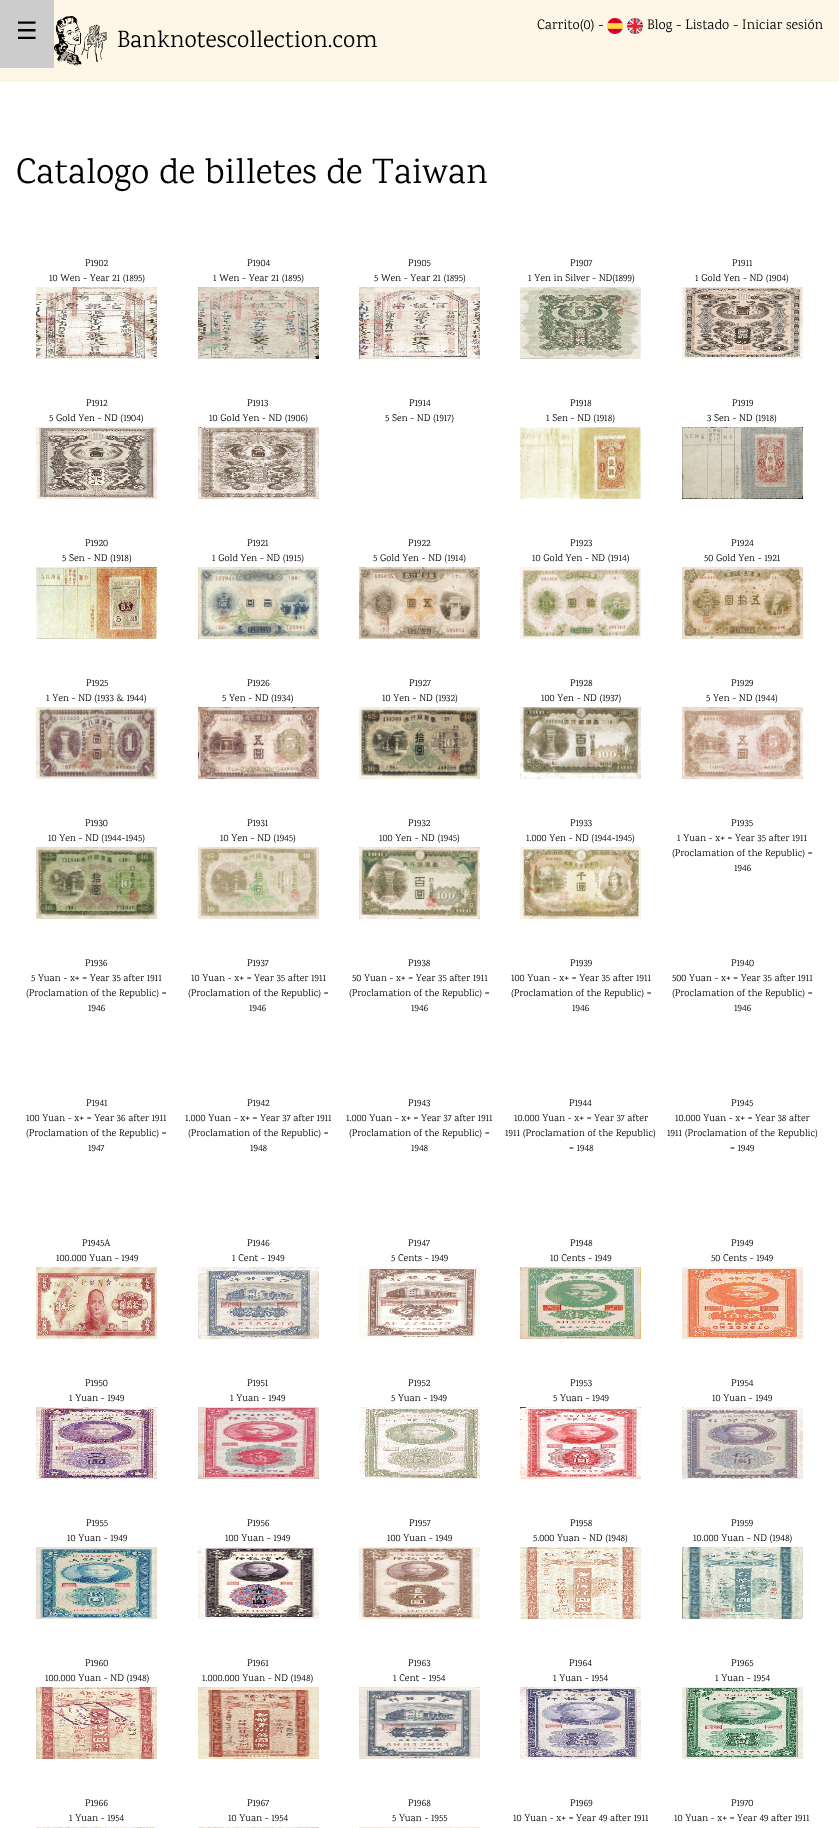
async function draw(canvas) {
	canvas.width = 839;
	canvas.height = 1828;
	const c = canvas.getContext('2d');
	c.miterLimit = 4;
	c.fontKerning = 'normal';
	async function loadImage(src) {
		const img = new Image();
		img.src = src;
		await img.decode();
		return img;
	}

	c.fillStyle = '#fff';
	c.fillRect(0, 0, 839, 1828);
	c.fillStyle = '#fdf5e6';
	c.fillRect(0, 0, 839, 82);
	c.fillStyle = '#ccc';
	c.fillRect(0, 0, 54, 68);
	c.font = '24px DejaVu Sans';
	c.fillStyle = '#000';
	c.fillText('☰', 16, 39);
	c.drawImage(await loadImage('img1.png'), 54, 16, 53, 50);
	c.font = '24px Karma';
	c.fillText('Banknotescollection.com', 117, 47);
	c.font = '14px Karma';
	c.fillText('Carrito(0) -', 537, 29);
	c.drawImage(await loadImage('img2.png'), 607, 18, 16, 16);
	c.drawImage(await loadImage('img3.png'), 627, 18, 16, 16);
	c.fillText('Blog - Listado - Iniciar sesión', 647, 29);
	c.font = '36px Karma';
	c.fillText('Catalogo de billetes de Taiwan', 16, 183);
	c.font = '10px Karma';
	c.fillText('P1902', 85, 266);
	c.fillText('10 Wen - Year 21 (1895)', 49, 281);
	c.drawImage(await loadImage('img4.png'), 36, 287, 121, 72);
	c.fillText('P1904', 247, 266);
	c.fillText('1 Wen - Year 21 (1895)', 213, 281);
	c.drawImage(await loadImage('img5.png'), 198, 287, 121, 72);
	c.fillText('P1905', 408, 266);
	c.fillText('5 Wen - Year 21 (1895)', 374, 281);
	c.drawImage(await loadImage('img6.png'), 359, 287, 121, 72);
	c.fillText('P1907', 570, 266);
	c.fillText('1 Yen in Silver - ND(1899)', 528, 281);
	c.drawImage(await loadImage('img7.png'), 520, 287, 121, 72);
	c.fillText('P1911', 732, 266);
	c.fillText('1 Gold Yen - ND (1904)', 695, 281);
	c.drawImage(await loadImage('img8.png'), 682, 287, 121, 72);
	c.fillText('P1912', 86, 406);
	c.fillText('5 Gold Yen - ND (1904)', 49, 421);
	c.drawImage(await loadImage('img9.png'), 36, 427, 121, 72);
	c.fillText('P1913', 247, 406);
	c.fillText('10 Gold Yen - ND (1906)', 209, 421);
	c.drawImage(await loadImage('img10.png'), 198, 427, 121, 72);
	for (const [text, x, y] of [
		['P1914', 409, 406],
		['5 Sen - ND (1917)', 385, 421],
		['P1918', 570, 406],
		['1 Sen - ND (1918)', 546, 421],
	]) {
		c.fillText(text, x, y);
	}
	c.drawImage(await loadImage('img11.png'), 520, 427, 121, 72);
	c.fillText('P1919', 732, 406);
	c.fillText('3 Sen - ND (1918)', 707, 421);
	c.drawImage(await loadImage('img12.png'), 682, 427, 121, 72);
	c.fillText('P1920', 85, 546);
	c.fillText('5 Sen - ND (1918)', 62, 561);
	c.drawImage(await loadImage('img13.png'), 36, 567, 121, 72);
	c.fillText('P1921', 247, 546);
	c.fillText('1 Gold Yen - ND (1915)', 212, 561);
	c.drawImage(await loadImage('img14.png'), 198, 567, 121, 72);
	c.fillText('P1922', 408, 546);
	c.fillText('5 Gold Yen - ND (1914)', 373, 561);
	c.drawImage(await loadImage('img15.png'), 359, 567, 121, 72);
	c.fillText('P1923', 570, 546);
	c.fillText('10 Gold Yen - ND (1914)', 532, 561);
	c.drawImage(await loadImage('img16.png'), 520, 567, 121, 72);
	c.fillText('P1924', 731, 546);
	c.fillText('50 Gold Yen - 1921', 704, 561);
	c.drawImage(await loadImage('img17.png'), 682, 567, 121, 72);
	c.fillText('P1925', 86, 686);
	c.fillText('1 Yen - ND (1933 & 1944)', 46, 701);
	c.drawImage(await loadImage('img18.png'), 36, 707, 121, 72);
	c.fillText('P1926', 247, 686);
	c.fillText('5 Yen - ND (1934)', 222, 701);
	c.drawImage(await loadImage('img19.png'), 198, 707, 121, 72);
	c.fillText('P1927', 409, 686);
	c.fillText('10 Yen - ND (1932)', 382, 701);
	c.drawImage(await loadImage('img20.png'), 359, 707, 121, 72);
	c.fillText('P1928', 570, 686);
	c.fillText('100 Yen - ND (1937)', 541, 701);
	c.drawImage(await loadImage('img21.png'), 520, 707, 121, 72);
	c.fillText('P1929', 731, 686);
	c.fillText('5 Yen - ND (1944)', 706, 701);
	c.drawImage(await loadImage('img22.png'), 682, 707, 121, 72);
	c.fillText('P1930', 85, 826);
	c.fillText('10 Yen - ND (1944-1945)', 48, 841);
	c.drawImage(await loadImage('img23.png'), 36, 847, 121, 72);
	c.fillText('P1931', 247, 826);
	c.fillText('10 Yen - ND (1945)', 220, 841);
	c.drawImage(await loadImage('img24.png'), 198, 847, 121, 72);
	c.fillText('P1932', 408, 826);
	c.fillText('100 Yen - ND (1945)', 379, 841);
	c.drawImage(await loadImage('img25.png'), 359, 847, 121, 72);
	c.fillText('P1933', 570, 826);
	c.fillText('1.000 Yen - ND (1944-1945)', 526, 841);
	c.drawImage(await loadImage('img26.png'), 520, 847, 121, 72);
	for (const [text, x, y] of [
		['P1935', 731, 826],
		['1 Yuan - x+ = Year 35 after 1911', 677, 841],
		['(Proclamation of the Republic) =', 672, 856],
		['1946', 734, 871],
		['P1936', 85, 966],
		['5 Yuan - x+ = Year 35 after 1911', 31, 981],
		['(Proclamation of the Republic) =', 26, 996],
		['1946', 88, 1011],
		['P1937', 247, 966],
		['10 Yuan - x+ = Year 35 after 1911', 191, 981],
		['(Proclamation of the Republic) =', 188, 996],
		['1946', 249, 1011],
		['P1938', 408, 966],
		['50 Yuan - x+ = Year 35 after 1911', 352, 981],
		['(Proclamation of the Republic) =', 349, 996],
		['1946', 411, 1011],
		['P1939', 570, 966],
		['100 Yuan - x+ = Year 35 after 1911', 511, 981],
		['(Proclamation of the Republic) =', 511, 996],
		['1946', 572, 1011],
		['P1940', 731, 966],
		['500 Yuan - x+ = Year 35 after 1911', 672, 981],
		['(Proclamation of the Republic) =', 672, 996],
		['1946', 734, 1011],
		['P1941', 86, 1106],
		['100 Yuan - x+ = Year 36 after 1911', 26, 1121],
		['(Proclamation of the Republic) =', 26, 1136],
		['1947', 88, 1151],
		['P1942', 247, 1106],
		['1.000 Yuan - x+ = Year 37 after 1911', 185, 1121],
		['(Proclamation of the Republic) =', 188, 1136],
		['1948', 250, 1151],
		['P1943', 408, 1106],
		['1.000 Yuan - x+ = Year 37 after 1911', 346, 1121],
		['(Proclamation of the Republic) =', 349, 1136],
		['1948', 411, 1151],
		['P1944', 569, 1106],
		['10.000 Yuan - x+ = Year 37 after', 514, 1121],
		['1911 (Proclamation of the Republic)', 505, 1136],
		['= 1948', 569, 1151],
		['P1945', 731, 1106],
		['10.000 Yuan - x+ = Year 38 after', 675, 1121],
		['1911 (Proclamation of the Republic)', 667, 1136],
		['= 1949', 730, 1151],
		['P1945A', 82, 1246],
		['100.000 Yuan - 1949', 56, 1261],
	]) {
		c.fillText(text, x, y);
	}
	c.drawImage(await loadImage('img27.png'), 36, 1267, 121, 72);
	c.fillText('P1946', 247, 1246);
	c.fillText('1 Cent - 1949', 232, 1261);
	c.drawImage(await loadImage('img28.png'), 198, 1267, 121, 72);
	c.fillText('P1947', 408, 1246);
	c.fillText('5 Cents - 1949', 391, 1261);
	c.drawImage(await loadImage('img29.png'), 359, 1267, 121, 72);
	c.fillText('P1948', 570, 1246);
	c.fillText('10 Cents - 1949', 550, 1261);
	c.drawImage(await loadImage('img30.png'), 520, 1267, 121, 72);
	c.fillText('P1949', 731, 1246);
	c.fillText('50 Cents - 1949', 711, 1261);
	c.drawImage(await loadImage('img31.png'), 682, 1267, 121, 72);
	c.fillText('P1950', 85, 1386);
	c.fillText('1 Yuan - 1949', 69, 1401);
	c.drawImage(await loadImage('img32.png'), 36, 1407, 121, 72);
	c.fillText('P1951', 247, 1386);
	c.fillText('1 Yuan - 1949', 230, 1401);
	c.drawImage(await loadImage('img33.png'), 198, 1407, 121, 72);
	c.fillText('P1952', 408, 1386);
	c.fillText('5 Yuan - 1949', 391, 1401);
	c.drawImage(await loadImage('img34.png'), 359, 1407, 121, 72);
	c.fillText('P1953', 570, 1386);
	c.fillText('5 Yuan - 1949', 553, 1401);
	c.drawImage(await loadImage('img35.png'), 520, 1407, 121, 72);
	c.fillText('P1954', 731, 1386);
	c.fillText('10 Yuan - 1949', 712, 1401);
	c.drawImage(await loadImage('img36.png'), 682, 1407, 121, 72);
	c.fillText('P1955', 86, 1526);
	c.fillText('10 Yuan - 1949', 67, 1541);
	c.drawImage(await loadImage('img37.png'), 36, 1547, 121, 72);
	c.fillText('P1956', 247, 1526);
	c.fillText('100 Yuan - 1949', 225, 1541);
	c.drawImage(await loadImage('img38.png'), 198, 1547, 121, 72);
	c.fillText('P1957', 409, 1526);
	c.fillText('100 Yuan - 1949', 387, 1541);
	c.drawImage(await loadImage('img39.png'), 359, 1547, 121, 72);
	c.fillText('P1958', 570, 1526);
	c.fillText('5.000 Yuan - ND (1948)', 533, 1541);
	c.drawImage(await loadImage('img40.png'), 520, 1547, 121, 72);
	c.fillText('P1959', 731, 1526);
	c.fillText('10.000 Yuan - ND (1948)', 693, 1541);
	c.drawImage(await loadImage('img41.png'), 682, 1547, 121, 72);
	c.fillText('P1960', 85, 1666);
	c.fillText('100.000 Yuan - ND (1948)', 45, 1681);
	c.drawImage(await loadImage('img42.png'), 36, 1687, 121, 72);
	c.fillText('P1961', 247, 1666);
	c.fillText('1.000.000 Yuan - ND (1948)', 202, 1681);
	c.drawImage(await loadImage('img43.png'), 198, 1687, 121, 72);
	c.fillText('P1963', 408, 1666);
	c.fillText('1 Cent - 1954', 393, 1681);
	c.drawImage(await loadImage('img44.png'), 359, 1687, 121, 72);
	c.fillText('P1964', 569, 1666);
	c.fillText('1 Yuan - 1954', 553, 1681);
	c.drawImage(await loadImage('img45.png'), 520, 1687, 121, 72);
	c.fillText('P1965', 731, 1666);
	c.fillText('1 Yuan - 1954', 715, 1681);
	c.drawImage(await loadImage('img46.png'), 682, 1687, 121, 72);
	c.fillText('P1966', 85, 1806);
	c.fillText('1 Yuan - 1954', 69, 1821);
	c.drawImage(await loadImage('img47.png'), 36, 1827, 121, 1);
	c.fillText('P1967', 247, 1806);
	c.fillText('10 Yuan - 1954', 228, 1821);
	c.drawImage(await loadImage('img48.png'), 198, 1827, 121, 1);
	c.fillText('P1968', 408, 1806);
	c.fillText('5 Yuan - 1955', 392, 1821);
	c.drawImage(await loadImage('img49.png'), 359, 1827, 121, 1);
	for (const [text, x, y] of [
		['P1969', 570, 1806],
		['10 Yuan - x+ = Year 49 after 1911', 513, 1821],
		['P1970', 731, 1806],
		['10 Yuan - x+ = Year 49 after 1911', 674, 1821],
	]) {
		c.fillText(text, x, y);
	}
}

draw(document.querySelector('canvas'));
